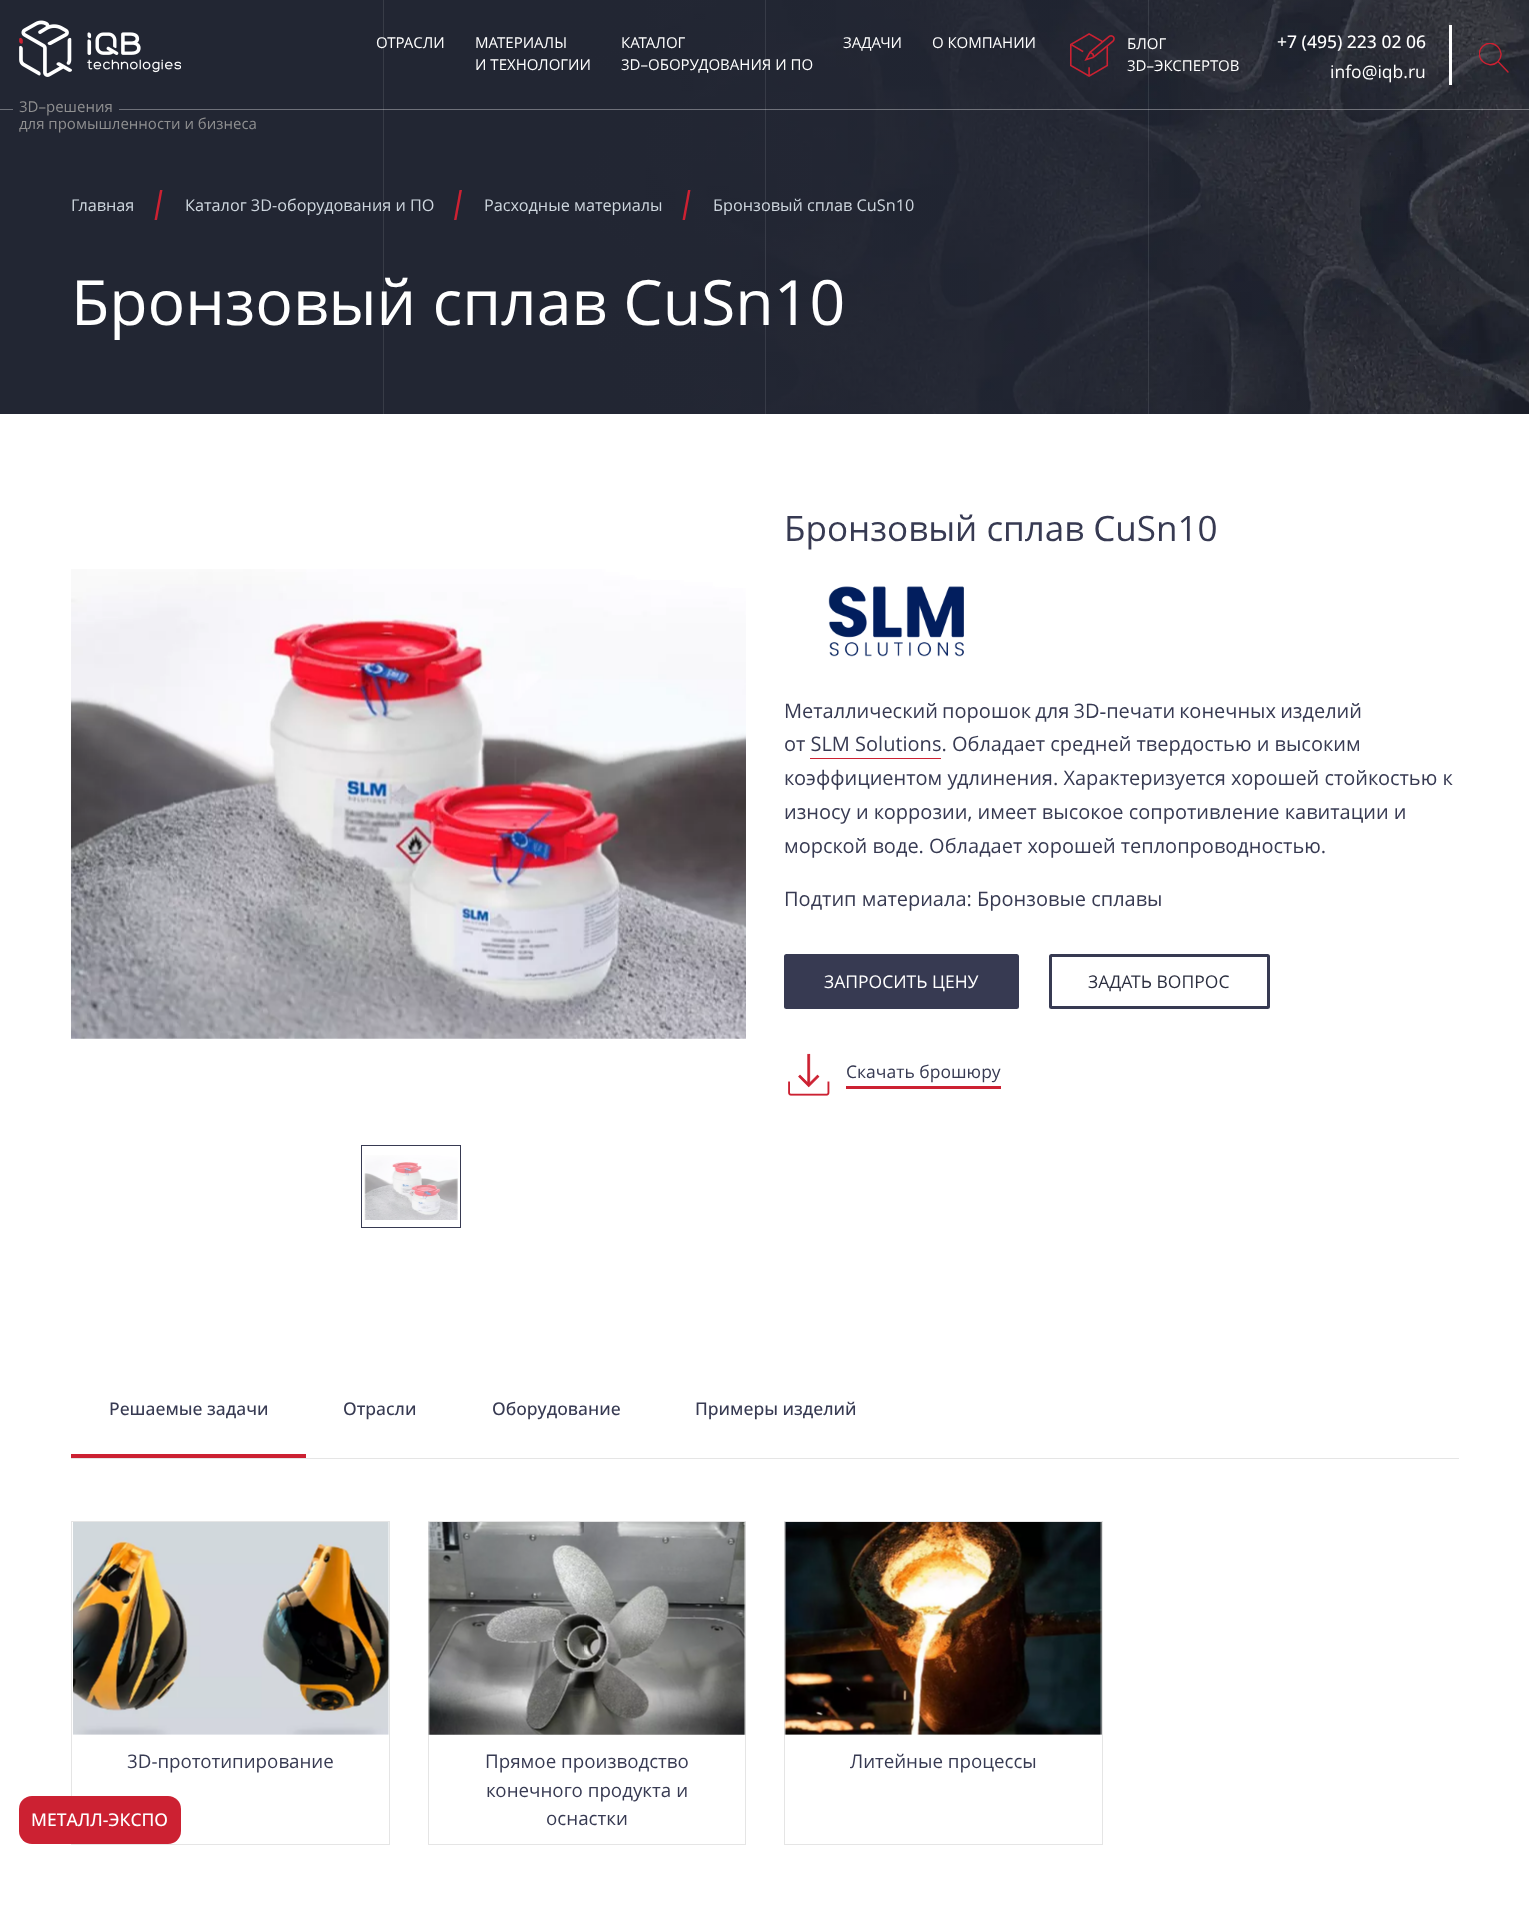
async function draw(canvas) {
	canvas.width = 1529;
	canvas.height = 1912;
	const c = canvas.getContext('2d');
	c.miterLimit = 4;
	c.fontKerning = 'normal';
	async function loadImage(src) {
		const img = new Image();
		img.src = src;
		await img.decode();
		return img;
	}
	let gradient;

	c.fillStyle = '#fff';
	c.fillRect(0, 0, 1529, 1912);
	c.fillStyle = '#222633';
	c.fillRect(0, 0, 1529, 414);
	c.fillStyle = '#383c47';
	c.fillRect(383, 0, 1, 414);
	c.drawImage(await loadImage('img1.png'), 523, 0, 1006, 414);
	gradient = c.createLinearGradient(515, 207, 1515, 207);
	gradient.addColorStop(0, '#222633');
	gradient.addColorStop(1, '#22263300');
	c.fillStyle = gradient;
	c.fillRect(523, 0, 950, 414);
	for (const [x, y, w, h, color] of [
		[765, 0, 1, 414, '#373b47'],
		[1148, 0, 1, 414, '#e7eaec1c'],
		[0, 109, 13, 1, '#6f727a'],
	]) {
		c.fillStyle = color;
		c.fillRect(x, y, w, h);
	}
	c.font = '15px Open Sans';
	c.fillStyle = '#fff';
	for (const [text, x, y] of [
		['ОТРАСЛИ', 376, 48],
		['МАТЕРИАЛЫ', 475, 48],
		['И ТЕХНОЛОГИИ', 475, 70],
		['КАТАЛОГ', 621, 48],
		['3D–ОБОРУДОВАНИЯ И ПО', 621, 70],
		['ЗАДАЧИ', 843, 48],
		['О КОМПАНИИ', 932, 48],
	]) {
		c.fillText(text, x, y);
	}
	c.drawImage(await loadImage('img2.png'), 1070, 33, 45, 44);
	c.fillText('БЛОГ', 1127, 49);
	c.fillText('3D–ЭКСПЕРТОВ', 1127, 71);
	c.font = '500 17.5px Open Sans';
	c.fillText('+7 (495) 223 02 06', 1277, 48);
	c.fillRect(1449, 25, 3, 60);
	c.font = '17.5px Open Sans';
	c.fillText('info@iqb.ru', 1330, 78);
	c.beginPath();
	c.moveTo(1508, 72);
	c.lineTo(1498, 61.5);
	c.strokeStyle = '#cc2132';
	c.lineWidth = 1.4;
	c.lineCap = 'round';
	c.lineJoin = 'round';
	c.stroke();
	c.save();
	c.beginPath();
	c.rect(1479, 43, 30, 30);
	c.clip();
	c.beginPath();
	c.moveTo(1482.5, 46.5);
	c.bezierCurveTo(1492.5, 36.5, 1507.5, 51.5, 1498, 61.5);
	c.bezierCurveTo(1488, 71.5, 1472.5, 56.5, 1482.5, 46.5);
	c.closePath();
	c.stroke();
	c.restore();
	c.strokeStyle = '#e5e5e5';
	c.lineWidth = 1;
	c.lineJoin = 'miter';
	c.strokeRect(71.5, 1521.5, 318, 323);
	c.fillStyle = '#cc2132';
	c.beginPath();
	c.roundRect(19, 1796, 162, 48, 13);
	c.fill();
	c.font = '500 17.5px Open Sans';
	c.fillStyle = '#fff';
	c.fillText('МЕТАЛЛ-ЭКСПО', 31, 1826);
	c.drawImage(await loadImage('img3.png'), 19, 20, 162, 57);
	c.font = '15px Open Sans';
	c.fillStyle = '#8f8f90';
	c.fillText('3D–решения', 19, 112);
	c.fillText('для промышленности и бизнеса', 19, 129);
	c.fillStyle = '#ffffff59';
	c.fillRect(119, 109, 1410, 1);
	c.font = '16.25px Open Sans';
	c.fillStyle = '#ced6de';
	c.fillText('Главная', 71, 211);
	c.fillStyle = '#cc2132';
	c.beginPath();
	c.moveTo(160, 190);
	c.lineTo(162.5, 190);
	c.lineTo(157, 220);
	c.lineTo(154.5, 220);
	c.closePath();
	c.fill();
	c.fillStyle = '#ced6de';
	c.fillText('Каталог 3D-оборудования и ПО', 185, 211);
	c.fillStyle = '#cc2132';
	c.beginPath();
	c.moveTo(459.5, 190);
	c.lineTo(462, 190);
	c.lineTo(456.5, 220);
	c.lineTo(454, 220);
	c.closePath();
	c.fill();
	c.fillStyle = '#ced6de';
	c.fillText('Расходные материалы', 484, 211);
	c.fillStyle = '#cc2132';
	c.beginPath();
	c.moveTo(688, 190);
	c.lineTo(690.5, 190);
	c.lineTo(685, 220);
	c.lineTo(682.5, 220);
	c.closePath();
	c.fill();
	c.fillStyle = '#ced6de';
	c.fillText('Бронзовый сплав CuSn10', 713, 211);
	c.font = '62.5px Open Sans';
	c.fillStyle = '#fff';
	c.fillText('Бронзовый сплав CuSn10', 71, 325);
	c.drawImage(await loadImage('img4.png'), 71, 569, 675, 470);
	c.strokeStyle = '#373a52';
	c.strokeRect(361.5, 1145.5, 99, 82);
	c.drawImage(await loadImage('img5.png'), 364, 1155, 94, 65);
	c.font = '35px Open Sans';
	c.fillStyle = '#373a52';
	c.fillText('Бронзовый сплав CuSn10', 784, 541);
	c.drawImage(await loadImage('img6.png'), 828, 586, 136, 71);
	c.wordSpacing = '-1px';
	c.font = '20px Open Sans';
	c.fillText('Металлический порошок для 3D‑печати конечных изделий', 784, 718);
	c.wordSpacing = '0px';
	c.fillText('от SLM Solutions. Обладает средней твердостью и высоким', 784, 751);
	c.fillStyle = '#cc2132';
	c.fillRect(810, 758, 131, 1);
	c.fillStyle = '#373a52';
	for (const [text, x, y] of [
		['коэффициентом удлинения. Характеризуется хорошей стойкостью к', 784, 785],
		['износу и коррозии, имеет высокое сопротивление кавитации и', 784, 819],
		['морской воде. Обладает хорошей теплопроводностью.', 784, 853],
		['Подтип материала: Бронзовые сплавы', 784, 906],
	]) {
		c.fillText(text, x, y);
	}
	c.beginPath();
	c.roundRect(785.5, 955.5, 232, 52, 1);
	c.fill();
	c.lineWidth = 3;
	c.stroke();
	c.font = '17.5px Open Sans';
	c.fillStyle = '#fff';
	c.fillText('ЗАПРОСИТЬ ЦЕНУ', 824, 988);
	c.beginPath();
	c.roundRect(1050.5, 955.5, 218, 52, 1);
	c.stroke();
	c.fillStyle = '#2b2e3f';
	c.fillText('ЗАДАТЬ ВОПРОС', 1088, 988);
	c.drawImage(await loadImage('img7.png'), 788, 1053, 42, 43);
	c.fillStyle = '#cc2132';
	c.fillRect(846, 1086, 155, 3);
	c.fillStyle = '#373a52';
	c.fillText('Скачать брошюру', 846, 1078);
	c.fillStyle = '#e5e5e5';
	c.fillRect(71, 1458, 1388, 1);
	c.font = '500 17.5px Open Sans';
	c.fillStyle = '#373a52';
	c.fillText('Решаемые задачи', 109, 1415);
	c.fillStyle = '#cc2132';
	c.fillRect(71, 1454, 235, 4);
	c.fillStyle = '#373a52';
	for (const [text, x, y] of [
		['Отрасли', 343, 1415],
		['Оборудование', 492, 1415],
		['Примеры изделий', 695, 1415],
	]) {
		c.fillText(text, x, y);
	}
	c.drawImage(await loadImage('img8.png'), 73, 1522, 317, 213);
	c.font = '18.75px Open Sans';
	c.fillText('3D-прототипирование', 127, 1768);
	c.strokeStyle = '#e5e5e5';
	c.lineWidth = 1;
	c.strokeRect(428.5, 1521.5, 317, 323);
	c.drawImage(await loadImage('img9.png'), 428, 1522, 318, 213);
	for (const [text, x, y] of [
		['Прямое производство', 485, 1768],
		['конечного продукта и', 486, 1797],
		['оснастки', 546, 1825],
	]) {
		c.fillText(text, x, y);
	}
	c.strokeRect(784.5, 1521.5, 318, 323);
	c.drawImage(await loadImage('img10.png'), 784, 1522, 318, 213);
	c.fillText('Литейные процессы', 850, 1768);
}

draw(document.querySelector('canvas'));
